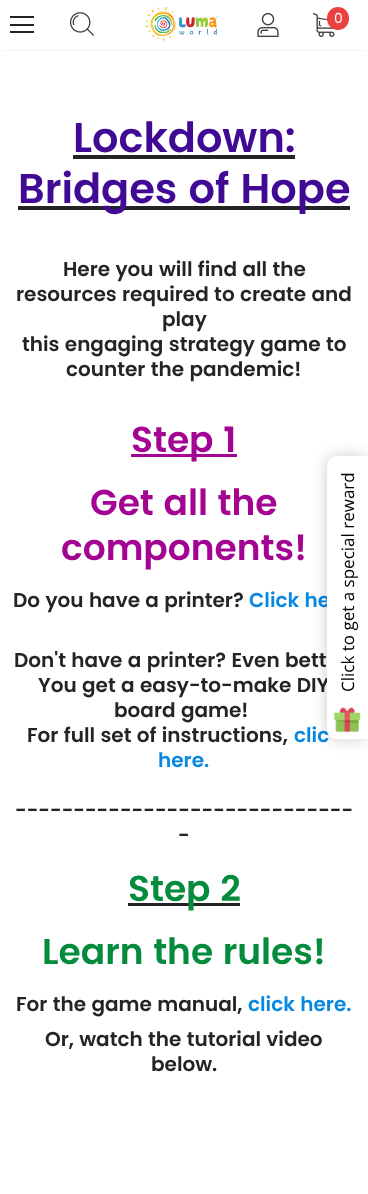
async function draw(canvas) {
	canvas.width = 368;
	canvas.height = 1194;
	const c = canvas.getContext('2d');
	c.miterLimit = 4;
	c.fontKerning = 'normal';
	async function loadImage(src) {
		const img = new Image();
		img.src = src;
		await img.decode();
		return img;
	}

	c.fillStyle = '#fff';
	c.fillRect(0, 0, 368, 1194);
	c.save();
	c.beginPath();
	c.rect(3, 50, 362, 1);
	c.clip();
	c.fillStyle = '#0000001f';
	c.filter = 'blur(1.5px)';
	c.beginPath();
	c.rect(3, 6, 362, 44);
	c.fill();
	c.filter = 'none';
	c.restore();
	for (const [x, y, w, h, color] of [
		[10, 16, 24, 2, '#232323'],
		[10, 24, 24, 2, '#232323'],
		[10, 31, 24, 2, '#232323'],
	]) {
		c.fillStyle = color;
		c.fillRect(x, y, w, h);
	}
	c.drawImage(await loadImage('img1.png'), 70, 12, 24, 24);
	c.drawImage(await loadImage('img2.png'), 145, 7, 73, 34);
	c.drawImage(await loadImage('img3.png'), 257, 13, 22, 24);
	c.drawImage(await loadImage('img4.png'), 312, 13, 23, 24);
	c.fillStyle = '#ec4142';
	c.beginPath();
	c.roundRect(327, 7, 22, 23, 11);
	c.fill();
	c.font = '14px Poppins';
	c.fillStyle = '#fff';
	c.fillText('0', 334, 23);
	c.font = '600 41.5px Poppins';
	c.fillStyle = '#400a94';
	c.fillText('Lockdown:', 73, 152);
	c.fillStyle = '#242424';
	c.fillRect(73, 155, 222, 4);
	c.fillRect(18, 206, 332, 4);
	c.fillStyle = '#400a94';
	c.fillText('Bridges of Hope', 18, 203);
	c.font = '600 20px Poppins';
	c.fillStyle = '#242424';
	for (const [text, x, y] of [
		['Here you will find all the', 63, 276],
		['resources required to create and', 16, 301],
		['play', 162, 326],
		['this engaging strategy game to', 22, 351],
		['counter the pandemic!', 66, 376],
	]) {
		c.fillText(text, x, y);
	}
	c.fillStyle = '#a30492';
	c.fillRect(131, 454, 106, 3);
	c.font = '600 36px Poppins';
	for (const [text, x, y] of [
		['Step 1', 131, 452],
		['Get all the', 90, 515],
		['components!', 61, 560],
	]) {
		c.fillText(text, x, y);
	}
	c.font = '600 20px Poppins';
	c.fillStyle = '#242424';
	c.fillText('Do you have a printer?', 13, 607);
	c.fillStyle = '#0688e2';
	c.fillText('Click he', 249, 607);
	c.fillStyle = '#242424';
	for (const [text, x, y] of [
		['Don\'t have a printer? Even bett', 14, 667],
		['You get a easy-to-make DIY', 38, 692],
		['board game!', 114, 717],
		['For full set of instructions,', 27, 742],
	]) {
		c.fillText(text, x, y);
	}
	c.fillStyle = '#0688e2';
	c.fillText('clic', 294, 742);
	c.fillText('here.', 158, 767);
	c.fillStyle = '#242424';
	c.fillText('-----------------------------', 15, 817);
	c.fillText('-', 178, 842);
	c.fillRect(128, 903, 112, 3);
	c.font = '600 36px Poppins';
	c.fillStyle = '#048b3c';
	c.fillText('Step 2', 128, 901);
	c.fillText('Learn the rules!', 42, 964);
	c.font = '600 20px Poppins';
	c.fillStyle = '#242424';
	c.fillText('For the game manual,', 16, 1011);
	c.fillStyle = '#0688e2';
	c.fillText('click here.', 248, 1011);
	c.fillStyle = '#242424';
	c.fillText('Or, watch the tutorial video', 45, 1046);
	c.fillText('below.', 151, 1071);
	c.fillStyle = '#00000033';
	c.filter = 'blur(7.5px)';
	c.beginPath();
	c.roundRect(327, 456, 41, 283, 10);
	c.fill();
	c.filter = 'none';
	c.fillStyle = '#fff';
	c.beginPath();
	c.roundRect(327, 456, 41, 283, [10, 0, 0, 10]);
	c.fill();
	c.font = '17px Open Sans';
	c.fillStyle = '#000';
	c.save();
	c.translate(354, 692);
	c.rotate(-90 * Math.PI / 180);
	c.fillText('Click to get a special reward', 0, 0);
	c.restore();
	c.drawImage(await loadImage('img5.png'), 334, 707, 27, 25);
}

draw(document.querySelector('canvas'));
